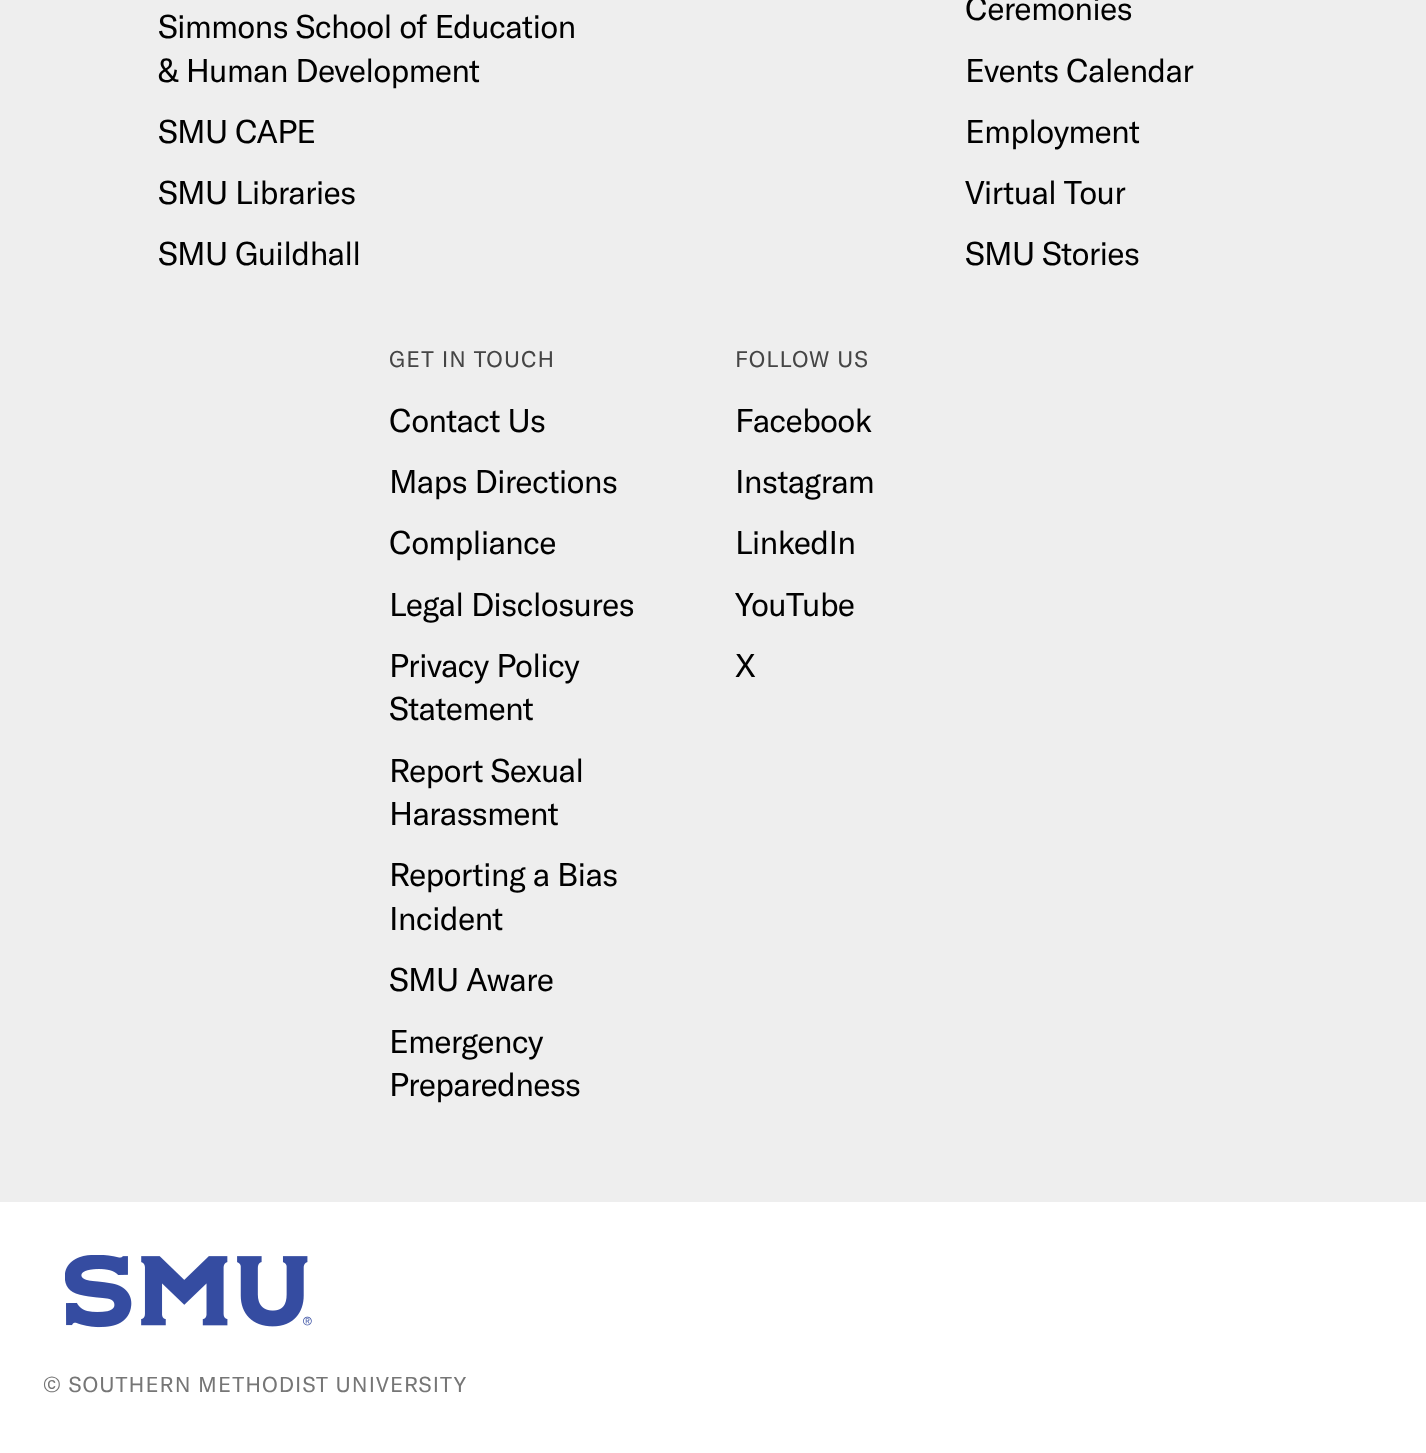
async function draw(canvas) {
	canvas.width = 1426;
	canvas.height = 1453;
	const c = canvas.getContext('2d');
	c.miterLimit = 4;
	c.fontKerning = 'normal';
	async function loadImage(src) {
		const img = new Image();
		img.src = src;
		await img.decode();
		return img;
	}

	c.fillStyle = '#fff';
	c.fillRect(0, 0, 1426, 1453);
	c.fillStyle = '#eee';
	c.fillRect(0, 0, 1426, 1202);
	c.letterSpacing = '-0.8px';
	c.font = '32.4px GT America';
	c.fillStyle = '#000';
	for (const [text, x, y] of [
		['Simmons School of Education', 158, 38],
		['& Human Development', 158, 82],
		['SMU CAPE', 158, 143],
		['SMU Libraries', 158, 204],
		['SMU Guildhall', 158, 265],
		['Ceremonies', 965, 20],
		['Events Calendar', 965, 82],
		['Employment', 965, 143],
		['Virtual Tour', 965, 204],
		['SMU Stories', 965, 265],
	]) {
		c.fillText(text, x, y);
	}
	c.letterSpacing = '1.1px';
	c.font = '22.25px GT America';
	c.fillStyle = '#454545';
	c.fillText('GET IN TOUCH', 389, 367);
	c.letterSpacing = '-0.8px';
	c.font = '32.4px GT America';
	c.fillStyle = '#000';
	for (const [text, x, y] of [
		['Contact Us', 389, 432],
		['Maps Directions', 389, 493],
		['Compliance', 389, 554],
		['Legal Disclosures', 389, 616],
		['Privacy Policy', 389, 677],
		['Statement', 389, 720],
		['Report Sexual', 389, 782],
		['Harassment', 389, 825],
		['Reporting a Bias', 389, 886],
		['Incident', 389, 930],
		['SMU Aware', 389, 991],
		['Emergency', 389, 1053],
		['Preparedness', 389, 1096],
	]) {
		c.fillText(text, x, y);
	}
	c.letterSpacing = '1.1px';
	c.font = '22.25px GT America';
	c.fillStyle = '#454545';
	c.fillText('FOLLOW US', 735, 367);
	c.letterSpacing = '-0.8px';
	c.font = '32.4px GT America';
	c.fillStyle = '#000';
	for (const [text, x, y] of [
		['Facebook', 735, 432],
		['Instagram', 735, 493],
		['LinkedIn', 735, 554],
		['YouTube', 735, 616],
		['X', 735, 677],
	]) {
		c.fillText(text, x, y);
	}
	c.drawImage(await loadImage('img1.png'), 65, 1255, 247, 73);
	c.letterSpacing = '1.05px';
	c.font = '21.25px GT America';
	c.fillStyle = '#767676';
	c.fillText('© SOUTHERN METHODIST UNIVERSITY', 43, 1392);
}

draw(document.querySelector('canvas'));
